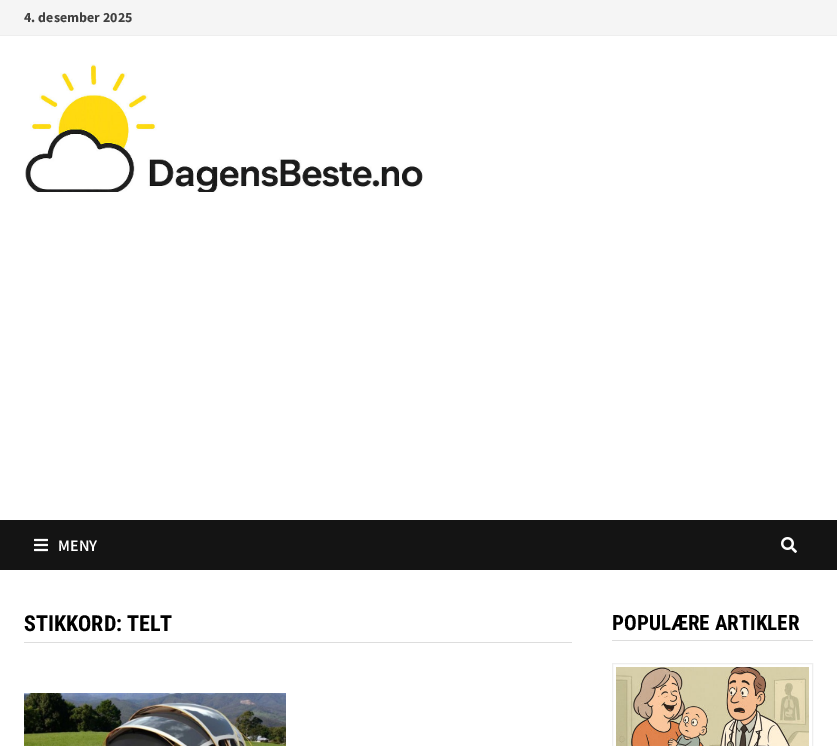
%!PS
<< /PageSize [837 746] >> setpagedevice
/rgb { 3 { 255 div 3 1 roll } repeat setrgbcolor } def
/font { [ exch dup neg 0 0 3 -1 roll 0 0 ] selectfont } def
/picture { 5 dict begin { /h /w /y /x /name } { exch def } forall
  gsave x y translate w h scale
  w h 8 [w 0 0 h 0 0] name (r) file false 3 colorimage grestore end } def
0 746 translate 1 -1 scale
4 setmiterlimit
255 255 255 rgb
0 0 837 746 rectfill
245 245 245 rgb
0 0 837 35 rectfill
238 238 238 rgb
0 35 837 1 rectfill
(img/1.rgb) 25 64 398 128 picture
20 20 20 rgb
0 520 837 50 rectfill
(img/2.rgb) 34 538 14 14 picture
(img/3.rgb) 781 537 16 16 picture
221 221 221 rgb
24 642 548 1 rectfill
(img/4.rgb) 24 693 262 53 picture
612 640 201 1 rectfill
238 238 238 rgb
612.5 663.5 200 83 rectstroke
(img/5.rgb) 616 667 193 79 picture
/SourceSansPro-Bold 14 font
64 64 64 rgb
24 22 moveto (4. desember 2025) show
/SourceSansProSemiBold-SemiBold 16 font
255 255 255 rgb
58 551 moveto (MENY) show
/RobotoCondensed-Bold 22 font
0 0 0 rgb
24 631 moveto (STIKKORD: TELT) show
/RobotoCondensed-Bold 21 font
612 630 moveto (POPULÆRE ARTIKLER) show
showpage
